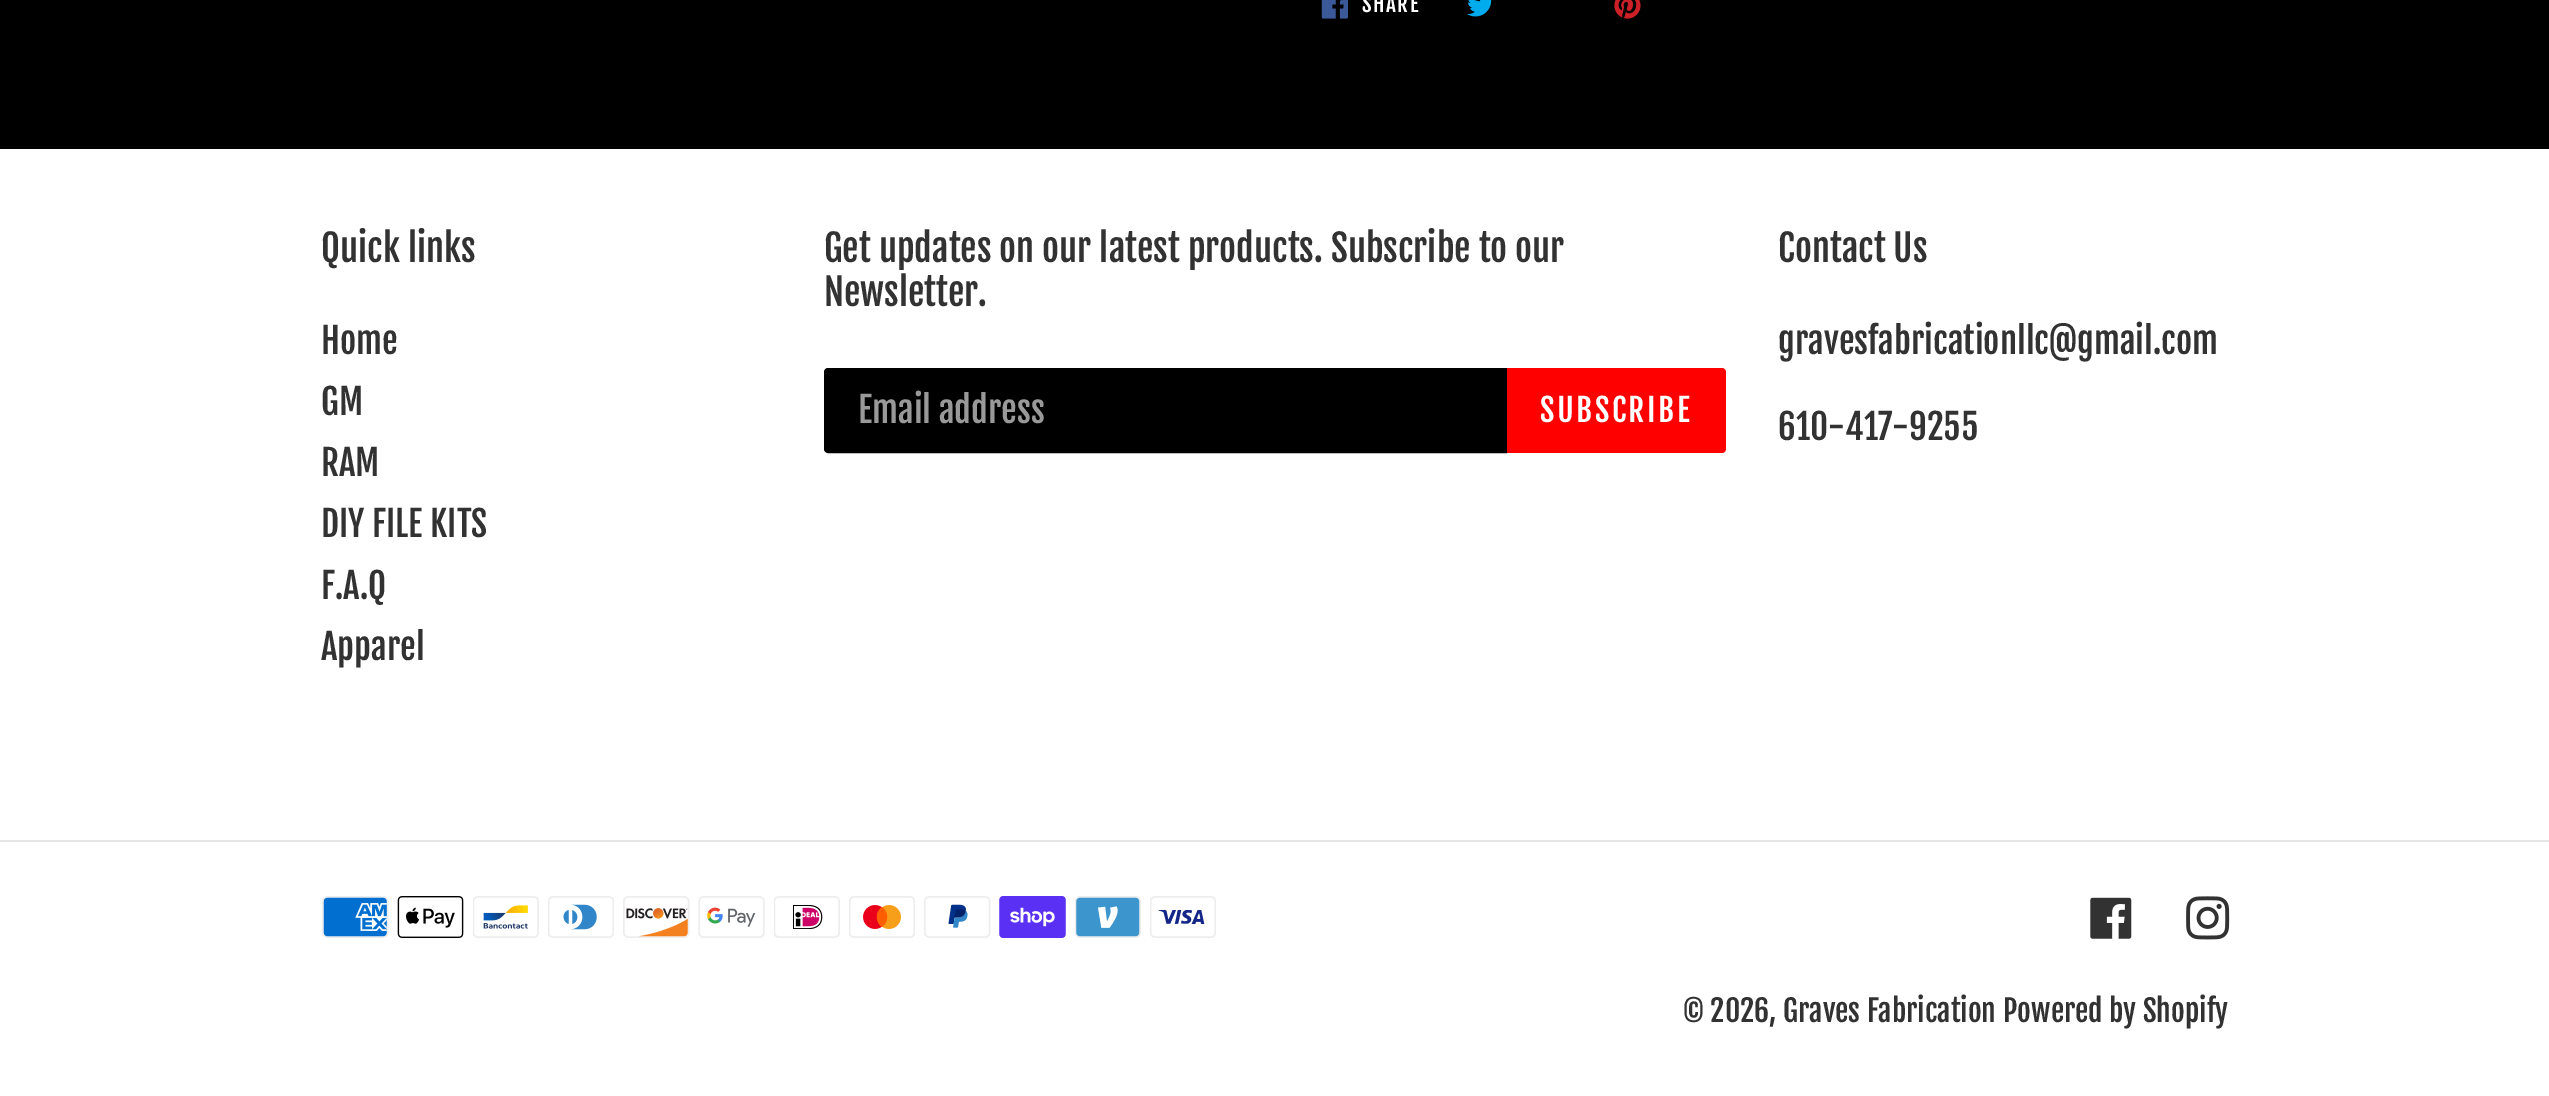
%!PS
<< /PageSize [2549 1096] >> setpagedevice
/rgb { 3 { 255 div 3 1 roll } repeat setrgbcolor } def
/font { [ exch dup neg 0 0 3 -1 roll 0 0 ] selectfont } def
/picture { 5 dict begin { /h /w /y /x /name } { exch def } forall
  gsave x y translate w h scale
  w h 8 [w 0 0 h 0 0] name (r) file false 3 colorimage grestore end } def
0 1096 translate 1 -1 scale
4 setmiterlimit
0 0 0 rgb
0 0 2549 1096 rectfill
(img/1.rgb) 1321 0 27 19 picture
(img/2.rgb) 1467 0 25 17 picture
(img/3.rgb) 1614 0 27 19 picture
255 255 255 rgb
0 149 2549 947 rectfill
0 0 0 rgb
828 369 moveto 1506 369 lineto 1506 452 lineto 828 452 lineto 826.5 452 825 450.5 825 449 curveto 825 372 lineto 825 370.5 826.5 369 828 369 curveto closepath gsave fill grestore
2 setlinewidth
stroke
255 0 0 rgb
1507 368 moveto 1722 368 lineto 1724 368 1726 370 1726 372 curveto 1726 449 lineto 1726 451 1724 453 1722 453 curveto 1507 453 lineto closepath fill
230 230 230 rgb
0 840 2549 2 rectfill
(img/4.rgb) 322 896 67 42 picture
(img/5.rgb) 397 896 67 42 picture
(img/6.rgb) 473 896 66 42 picture
(img/7.rgb) 548 896 66 42 picture
(img/8.rgb) 623 896 67 42 picture
(img/9.rgb) 698 896 67 42 picture
(img/10.rgb) 774 896 66 42 picture
(img/11.rgb) 849 896 66 42 picture
(img/12.rgb) 924 896 67 42 picture
(img/13.rgb) 999 896 67 42 picture
(img/14.rgb) 1075 896 66 42 picture
(img/15.rgb) 1150 896 66 42 picture
(img/16.rgb) 2090 897 42 42 picture
(img/17.rgb) 2186 896 44 44 picture
/FjallaOne-Regular 21 font
255 255 255 rgb
1362 12 moveto 1.5 0 (SHARE) ashow
/FjallaOne-Regular 36.75 font
51 50 50 rgb
321 262 moveto (Quick links) show
/FjallaOne-Regular 35 font
[
  [(Home) 321 354]
  [(GM) 321 415]
  [(RAM) 321 476]
  [(DIY FILE KITS) 321 537]
  [(F.A.Q) 321 599]
  [(Apparel) 321 660]
] { aload pop moveto show } forall
/FjallaOne-Regular 36.75 font
824 262 moveto (Get updates on our latest products. Subscribe to our) show
824 306 moveto (Newsletter.) show
/FjallaOne-Regular 35 font
153 153 153 rgb
858 423 moveto (Email address) show
/FjallaOne-Regular 31.5 font
255 255 255 rgb
1540 422 moveto 2.5 0 (SUBSCRIBE) ashow
/FjallaOne-Regular 36.75 font
51 50 50 rgb
1778 262 moveto (Contact Us) show
/FjallaOne-Regular 35 font
1778 354 moveto (gravesfabricationllc@gmail.com) show
1778 440 moveto (610-417-9255) show
/FjallaOne-Regular 29.75 font
1683 1022 moveto (© 2026, Graves Fabrication) show
2003 1022 moveto (Powered by Shopify) show
showpage
